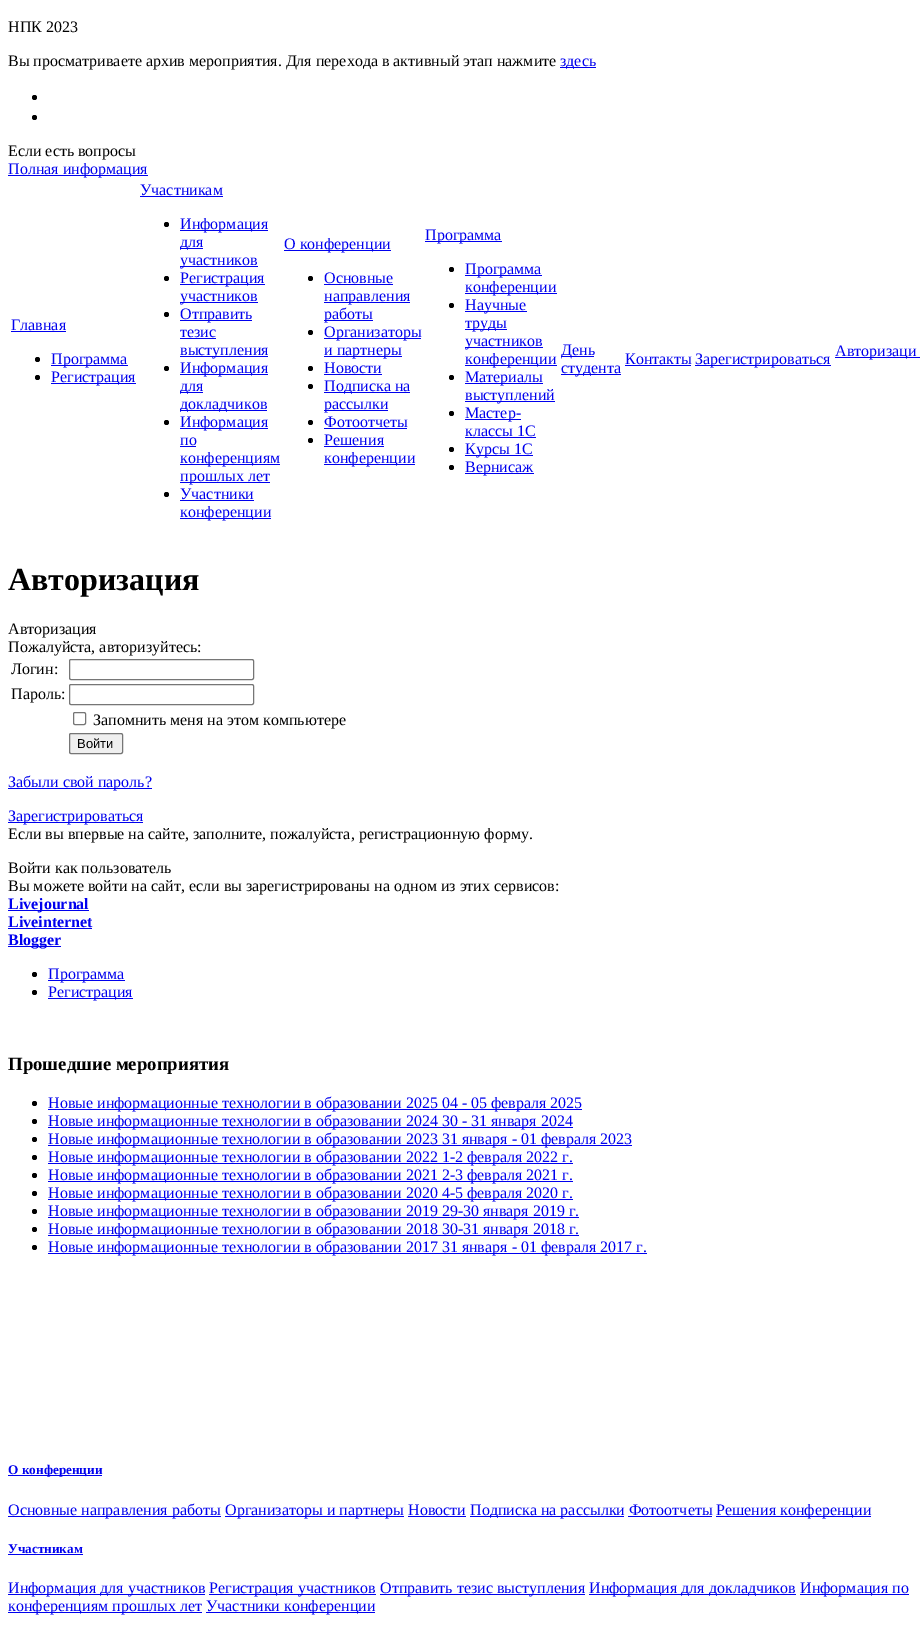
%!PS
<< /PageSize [920 1643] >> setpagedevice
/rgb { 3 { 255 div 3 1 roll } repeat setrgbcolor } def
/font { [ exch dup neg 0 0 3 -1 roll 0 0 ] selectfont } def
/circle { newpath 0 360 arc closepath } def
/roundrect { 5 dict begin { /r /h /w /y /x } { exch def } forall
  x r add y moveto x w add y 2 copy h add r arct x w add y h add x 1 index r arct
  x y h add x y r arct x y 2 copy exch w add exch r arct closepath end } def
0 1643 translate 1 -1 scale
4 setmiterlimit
255 255 255 rgb
0 0 920 1643 rectfill
0 0 238 rgb
560 67 36 1 rectfill
0 0 0 rgb
34.5 97.5 2.5 circle fill
34.5 117.5 2.5 circle fill
0 0 238 rgb
8 175 140 1 rectfill
11 331 55 1 rectfill
0 0 0 rgb
37.5 359.5 2.5 circle fill
0 0 238 rgb
51 365 77 1 rectfill
0 0 0 rgb
37.5 377.5 2.5 circle fill
0 0 238 rgb
51 383 85 1 rectfill
140 196 83 1 rectfill
0 0 0 rgb
166.5 224.5 2.5 circle fill
[
  [180 230 88 1 0 0 238]
  [180 248 23 1 0 0 238]
  [180 266 78 1 0 0 238]
] { aload pop rgb rectfill } forall
0 0 0 rgb
166.5 278.5 2.5 circle fill
0 0 238 rgb
180 284 85 1 rectfill
180 302 78 1 rectfill
0 0 0 rgb
166.5 314.5 2.5 circle fill
[
  [180 320 72 1 0 0 238]
  [180 338 36 1 0 0 238]
  [180 356 88 1 0 0 238]
] { aload pop rgb rectfill } forall
0 0 0 rgb
166.5 368.5 2.5 circle fill
[
  [180 374 88 1 0 0 238]
  [180 392 23 1 0 0 238]
  [180 410 87 1 0 0 238]
] { aload pop rgb rectfill } forall
0 0 0 rgb
166.5 422.5 2.5 circle fill
[
  [180 428 88 1 0 0 238]
  [180 446 16 1 0 0 238]
  [180 464 100 1 0 0 238]
  [180 482 90 1 0 0 238]
] { aload pop rgb rectfill } forall
0 0 0 rgb
166.5 494.5 2.5 circle fill
[
  [180 500 74 1 0 0 238]
  [180 518 91 1 0 0 238]
  [284 250 107 1 0 0 238]
] { aload pop rgb rectfill } forall
0 0 0 rgb
310.5 278.5 2.5 circle fill
[
  [324 284 69 1 0 0 238]
  [324 302 86 1 0 0 238]
  [324 320 49 1 0 0 238]
] { aload pop rgb rectfill } forall
0 0 0 rgb
310.5 332.5 2.5 circle fill
0 0 238 rgb
324 338 97 1 rectfill
324 356 78 1 rectfill
0 0 0 rgb
310.5 368.5 2.5 circle fill
0 0 238 rgb
324 374 58 1 rectfill
0 0 0 rgb
310.5 386.5 2.5 circle fill
0 0 238 rgb
324 392 86 1 rectfill
324 410 64 1 rectfill
0 0 0 rgb
310.5 422.5 2.5 circle fill
0 0 238 rgb
324 428 83 1 rectfill
0 0 0 rgb
310.5 440.5 2.5 circle fill
[
  [324 446 60 1 0 0 238]
  [324 464 91 1 0 0 238]
  [425 241 77 1 0 0 238]
] { aload pop rgb rectfill } forall
0 0 0 rgb
451.5 269.5 2.5 circle fill
0 0 238 rgb
465 275 77 1 rectfill
465 293 92 1 rectfill
0 0 0 rgb
451.5 305.5 2.5 circle fill
[
  [465 311 62 1 0 0 238]
  [465 329 42 1 0 0 238]
  [465 347 78 1 0 0 238]
  [465 365 92 1 0 0 238]
] { aload pop rgb rectfill } forall
0 0 0 rgb
451.5 377.5 2.5 circle fill
0 0 238 rgb
465 383 78 1 rectfill
465 401 90 1 rectfill
0 0 0 rgb
451.5 413.5 2.5 circle fill
0 0 238 rgb
465 419 56 1 rectfill
465 437 71 1 rectfill
0 0 0 rgb
451.5 449.5 2.5 circle fill
0 0 238 rgb
465 455 68 1 rectfill
0 0 0 rgb
451.5 467.5 2.5 circle fill
[
  [465 473 69 1 0 0 238]
  [561 356 33 1 0 0 238]
  [561 374 60 1 0 0 238]
  [625 365 66 1 0 0 238]
  [695 365 136 1 0 0 238]
  [835 357 85 1 0 0 238]
] { aload pop rgb rectfill } forall
118 118 118 rgb
69.5 659.5 184 20 1.5 roundrect stroke
69.5 684.5 184 20 1.5 roundrect stroke
73.5 712.5 12 12 1.5 roundrect stroke
239 239 239 rgb
69.5 733.5 53 20 1.5 roundrect gsave fill grestore
118 118 118 rgb
stroke
[
  [8 788 144 1 0 0 238]
  [8 822 135 1 0 0 238]
  [8 910 81 1 0 0 238]
  [8 928 84 1 0 0 238]
  [8 946 53 1 0 0 238]
] { aload pop rgb rectfill } forall
0 0 0 rgb
34.5 974.5 2.5 circle fill
0 0 238 rgb
48 980 77 1 rectfill
0 0 0 rgb
34.5 992.5 2.5 circle fill
0 0 238 rgb
48 998 85 1 rectfill
0 0 0 rgb
34.5 1103.5 2.5 circle fill
0 0 238 rgb
48 1109 534 1 rectfill
0 0 0 rgb
34.5 1121.5 2.5 circle fill
0 0 238 rgb
48 1127 525 1 rectfill
0 0 0 rgb
34.5 1139.5 2.5 circle fill
0 0 238 rgb
48 1145 584 1 rectfill
0 0 0 rgb
34.5 1157.5 2.5 circle fill
0 0 238 rgb
48 1163 525 1 rectfill
0 0 0 rgb
34.5 1175.5 2.5 circle fill
0 0 238 rgb
48 1181 525 1 rectfill
0 0 0 rgb
34.5 1193.5 2.5 circle fill
0 0 238 rgb
48 1199 525 1 rectfill
0 0 0 rgb
34.5 1211.5 2.5 circle fill
0 0 238 rgb
48 1217 531 1 rectfill
0 0 0 rgb
34.5 1229.5 2.5 circle fill
0 0 238 rgb
48 1235 531 1 rectfill
0 0 0 rgb
34.5 1247.5 2.5 circle fill
[
  [48 1253 599 1 0 0 238]
  [8 1475 94 1 0 0 238]
  [8 1516 213 1 0 0 238]
  [225 1516 179 1 0 0 238]
  [470 1516 154 1 0 0 238]
  [716 1516 155 1 0 0 238]
  [408 1516 58 1 0 0 238]
  [628 1516 84 1 0 0 238]
  [8 1554 75 1 0 0 238]
  [8 1594 197 1 0 0 238]
  [209 1594 167 1 0 0 238]
  [380 1594 205 1 0 0 238]
  [589 1594 207 1 0 0 238]
  [800 1594 109 1 0 0 238]
  [8 1612 194 1 0 0 238]
  [206 1612 169 1 0 0 238]
] { aload pop rgb rectfill } forall
/LiberationSerif-Regular 16 font
0 0 0 rgb
8 32 moveto (НПК 2023) show
8 66 moveto (Вы просматриваете архив мероприятия. Для перехода в активный этап нажмите) show
0 0 238 rgb
560 66 moveto (здесь) show
0 0 0 rgb
8 156 moveto (Если есть вопросы) show
0 0 238 rgb
[
  [(Полная информация) 8 174]
  [(Главная) 11 330]
  [(Программа) 51 364]
  [(Регистрация) 51 382]
  [(Участникам) 140 195]
  [(Информация) 180 229]
  [(для) 180 247]
  [(участников) 180 265]
  [(Регистрация) 180 283]
  [(участников) 180 301]
  [(Отправить) 180 319]
  [(тезис) 180 337]
  [(выступления) 180 355]
  [(Информация) 180 373]
  [(для) 180 391]
  [(докладчиков) 180 409]
  [(Информация) 180 427]
  [(по) 180 445]
  [(конференциям) 180 463]
  [(прошлых лет) 180 481]
  [(Участники) 180 499]
  [(конференции) 180 517]
  [(О конференции) 284 249]
  [(Основные) 324 283]
  [(направления) 324 301]
  [(работы) 324 319]
  [(Организаторы) 324 337]
  [(и партнеры) 324 355]
  [(Новости) 324 373]
  [(Подписка на) 324 391]
  [(рассылки) 324 409]
  [(Фотоотчеты) 324 427]
  [(Решения) 324 445]
  [(конференции) 324 463]
  [(Программа) 425 240]
  [(Программа) 465 274]
  [(конференции) 465 292]
  [(Научные) 465 310]
  [(труды) 465 328]
  [(участников) 465 346]
  [(конференции) 465 364]
  [(Материалы) 465 382]
  [(выступлений) 465 400]
  [(Мастер-) 465 418]
  [(классы 1С) 465 436]
  [(Курсы 1С) 465 454]
  [(Вернисаж) 465 472]
  [(День) 561 355]
  [(студента) 561 373]
  [(Контакты) 625 364]
  [(Зарегистрироваться) 695 364]
  [(Авторизаци) 835 356]
] { aload pop moveto show } forall
/LiberationSerif-Bold 32 font
0 0 0 rgb
8 590 moveto (Авторизация) show
/LiberationSerif-Regular 16 font
[
  [(Авторизация) 8 634]
  [(Пожалуйста, авторизуйтесь:) 8 652]
  [(Логин:) 11 674]
  [(Пароль:) 11 699]
  [(Запомнить меня на этом компьютере) 93 725]
] { aload pop moveto show } forall
/LiberationSans-Regular 13 font
77 748 moveto (Войти) show
/LiberationSerif-Regular 16 font
0 0 238 rgb
8 787 moveto (Забыли свой пароль?) show
8 821 moveto (Зарегистрироваться) show
0 0 0 rgb
[
  [(Если вы впервые на сайте, заполните, пожалуйста, регистрационную форму.) 8 839]
  [(Войти как пользователь) 8 873]
  [(Вы можете войти на сайт, если вы зарегистрированы на одном из этих сервисов:) 8 891]
] { aload pop moveto show } forall
/LiberationSerif-Bold 16 font
0 0 238 rgb
[
  [(Livejournal) 8 909]
  [(Liveinternet) 8 927]
  [(Blogger) 8 945]
] { aload pop moveto show } forall
/LiberationSerif-Regular 16 font
48 979 moveto (Программа) show
48 997 moveto (Регистрация) show
/LiberationSerif-Bold 18.75 font
0 0 0 rgb
8 1070 moveto (Прошедшие мероприятия) show
/LiberationSerif-Regular 16 font
0 0 238 rgb
[
  [(Новые информационные технологии в образовании 2025 04 - 05 февраля 2025) 48 1108]
  [(Новые информационные технологии в образовании 2024 30 - 31 января 2024) 48 1126]
  [(Новые информационные технологии в образовании 2023 31 января - 01 февраля 2023) 48 1144]
  [(Новые информационные технологии в образовании 2022 1-2 февраля 2022 г.) 48 1162]
  [(Новые информационные технологии в образовании 2021 2-3 февраля 2021 г.) 48 1180]
  [(Новые информационные технологии в образовании 2020 4-5 февраля 2020 г.) 48 1198]
  [(Новые информационные технологии в образовании 2019 29-30 января 2019 г.) 48 1216]
  [(Новые информационные технологии в образовании 2018 30-31 января 2018 г.) 48 1234]
  [(Новые информационные технологии в образовании 2017 31 января - 01 февраля 2017 г.) 48 1252]
] { aload pop moveto show } forall
/LiberationSerif-Bold 13.25 font
8 1474 moveto (О конференции) show
/LiberationSerif-Regular 16 font
[
  [(Основные направления работы) 8 1515]
  [(Организаторы и партнеры Новости) 225 1515]
  [(Подписка на рассылки Фотоотчеты) 470 1515]
  [(Решения конференции) 716 1515]
] { aload pop moveto show } forall
/LiberationSerif-Bold 13.25 font
8 1553 moveto (Участникам) show
/LiberationSerif-Regular 16 font
[
  [(Информация для участников) 8 1593]
  [(Регистрация участников) 209 1593]
  [(Отправить тезис выступления) 380 1593]
  [(Информация для докладчиков) 589 1593]
  [(Информация по) 800 1593]
  [(конференциям прошлых лет) 8 1611]
  [(Участники конференции) 206 1611]
] { aload pop moveto show } forall
showpage
